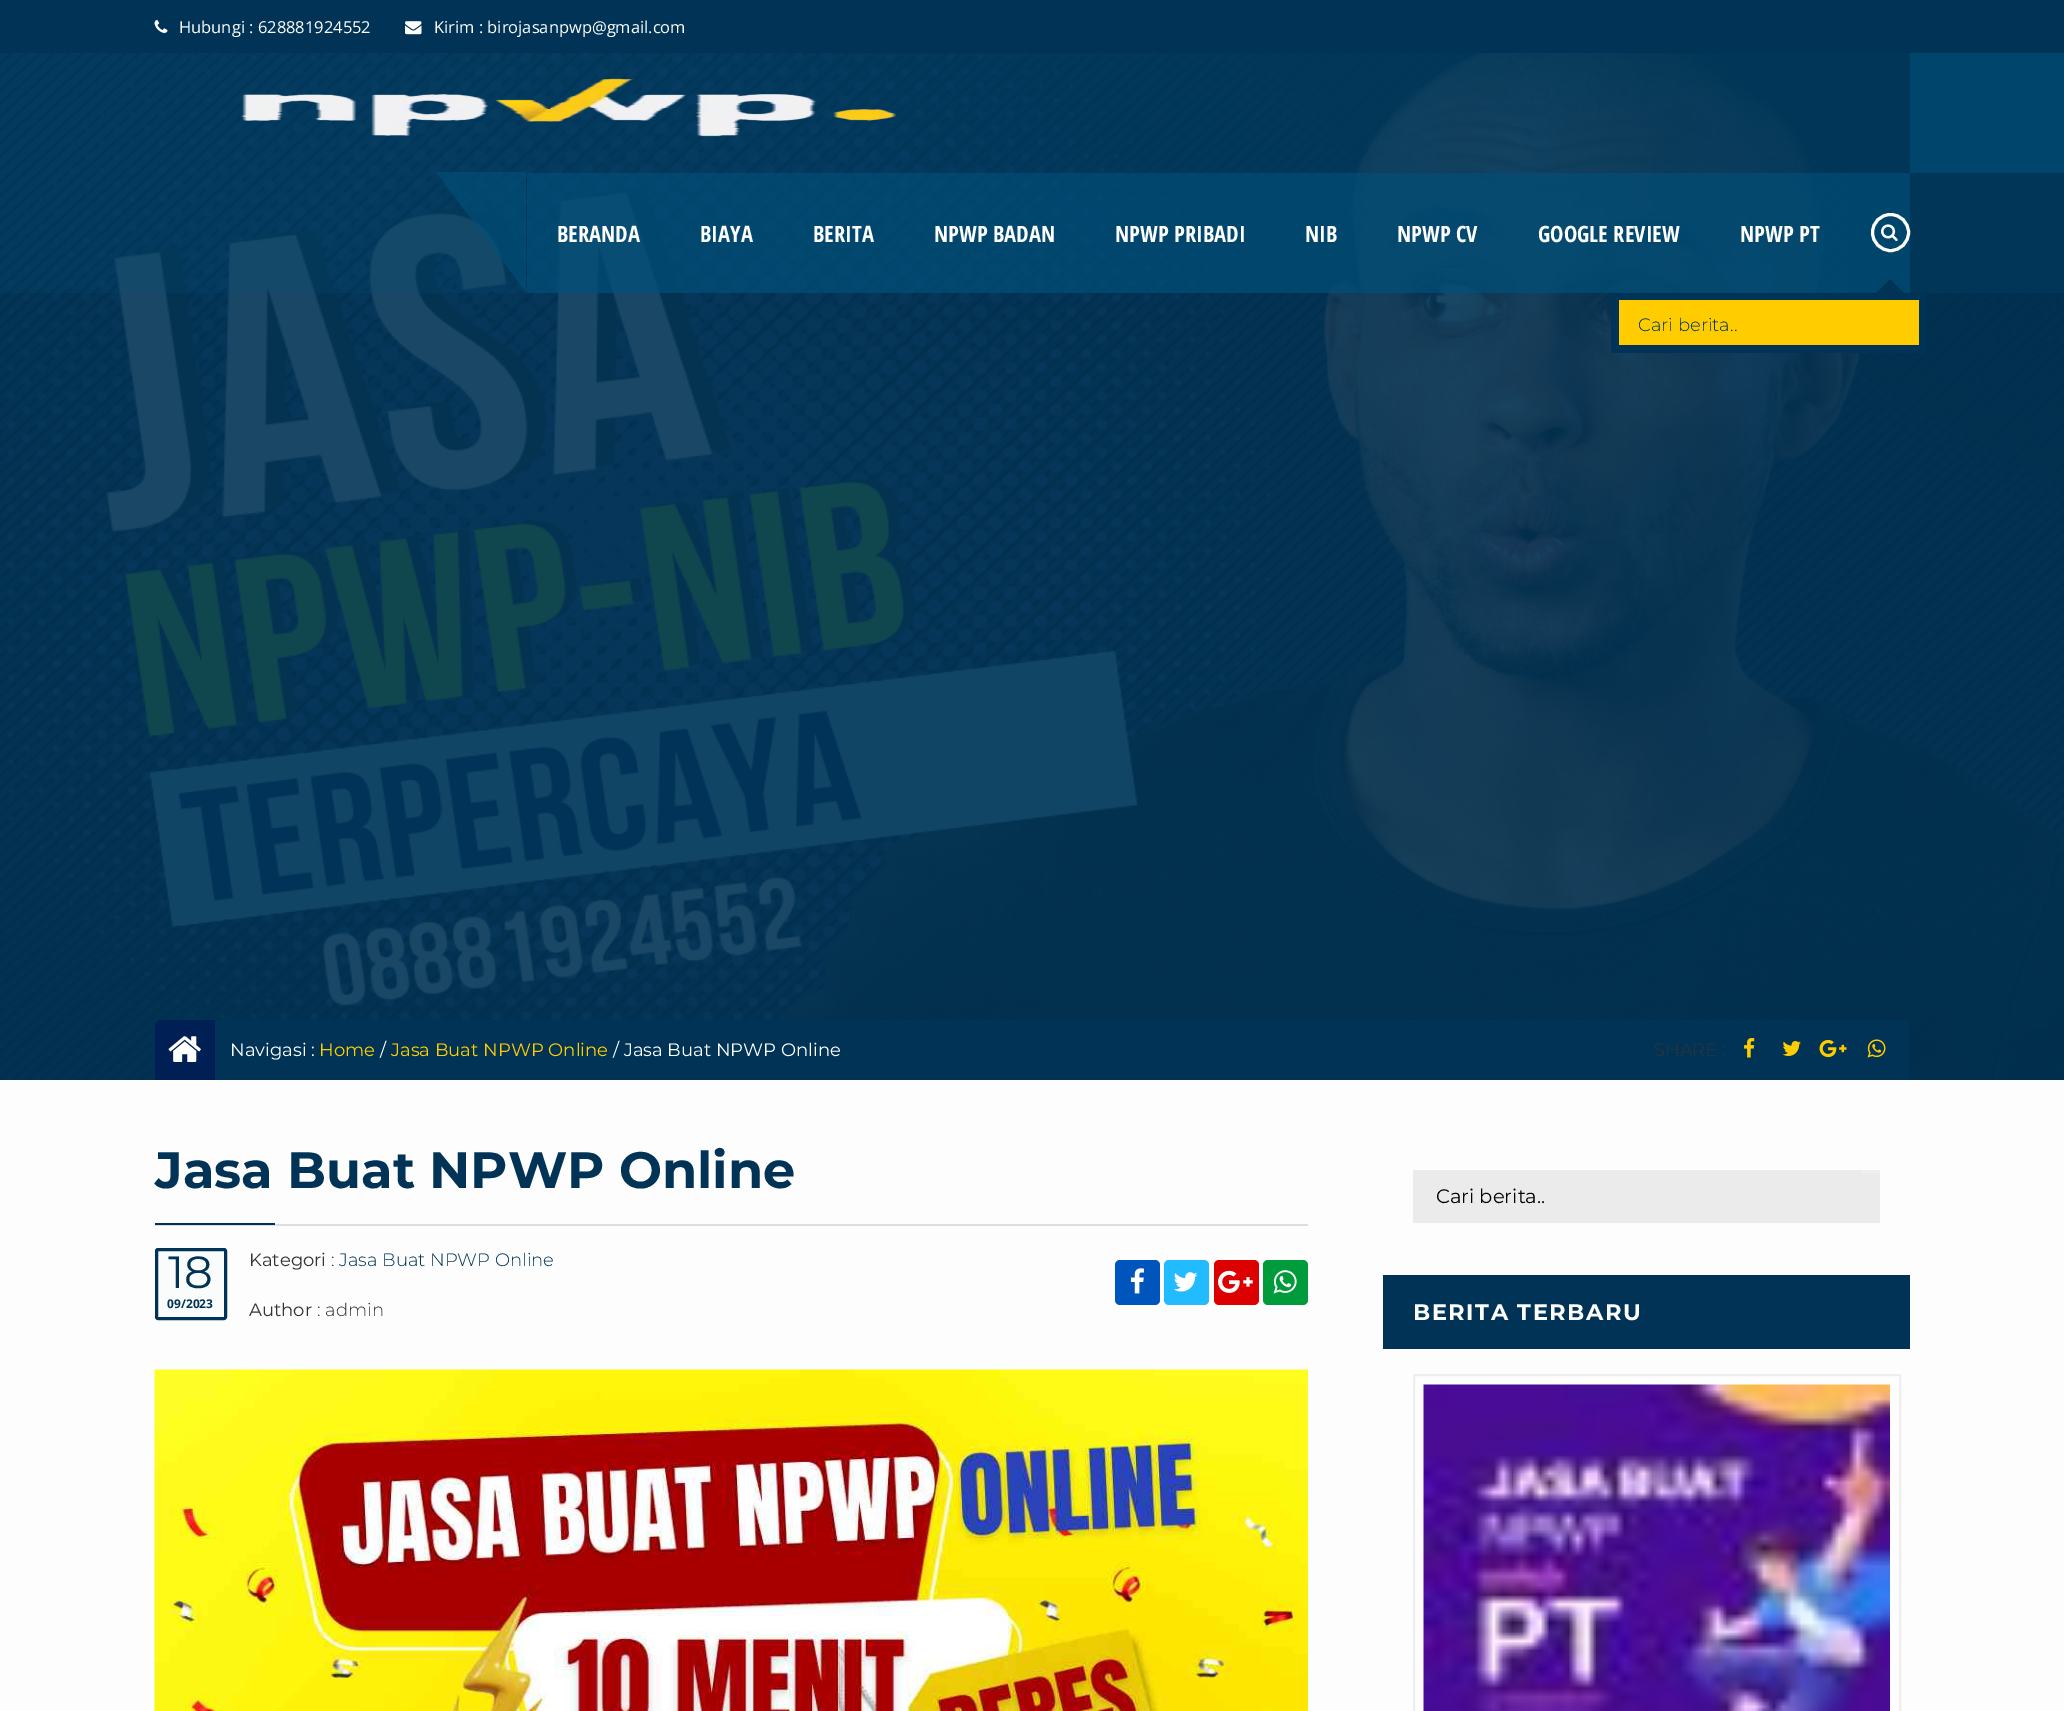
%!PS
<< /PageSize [2064 1711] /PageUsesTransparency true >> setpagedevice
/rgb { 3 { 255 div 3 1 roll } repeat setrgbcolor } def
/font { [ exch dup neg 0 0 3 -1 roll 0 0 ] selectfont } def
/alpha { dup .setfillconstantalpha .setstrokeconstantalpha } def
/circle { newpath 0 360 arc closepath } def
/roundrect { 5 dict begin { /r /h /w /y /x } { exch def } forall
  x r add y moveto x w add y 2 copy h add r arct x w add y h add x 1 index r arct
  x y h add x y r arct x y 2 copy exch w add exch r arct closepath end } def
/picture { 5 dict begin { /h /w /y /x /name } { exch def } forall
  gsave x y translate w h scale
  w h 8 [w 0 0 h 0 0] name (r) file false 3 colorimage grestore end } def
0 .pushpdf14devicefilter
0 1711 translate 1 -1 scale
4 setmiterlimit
253 253 253 rgb
0 0 2064 1711 rectfill
(img/5.rgb) 0 53 2064 1027 picture
0.2 alpha
0 80 122 rgb
0 53 2064 240 rectfill
1 alpha
0 51 85 rgb
0 0 2064 53 rectfill
(img/1.rgb) 154 20 14 13 picture
(img/2.rgb) 405 21 17 14 picture
(img/3.rgb) 241 78 655 59 picture
0 70 108 rgb
1910 53 154 120 rectfill
0.6 alpha
0 80 122 rgb
527 173 1323 120 rectfill
436 172 moveto 526 172 lineto 526 292 lineto closepath fill
1 alpha
0 70 108 rgb
1850 173 60 120 rectfill
255 255 255 rgb
3 setlinewidth
1890.5 232.5 18 circle stroke
(img/4.rgb) 1881 224 17 18 picture
0 51 85 rgb
1611 293 315 60 rectfill
255 204 0 rgb
1619 300 300 45 rectfill
0 51 85 rgb
1905 294 moveto 1875 294 lineto 1890 279 lineto closepath fill
161 1020 moveto 1904 1020 lineto 1907.5 1020 1910 1022.5 1910 1026 curveto 1910 1080 lineto 155 1080 lineto 155 1026 lineto 155 1022.5 157.5 1020 161 1020 curveto closepath fill
0 31 85 rgb
161 1020 moveto 215 1020 lineto 215 1080 lineto 155 1080 lineto 155 1026 lineto 155 1022.5 157.5 1020 161 1020 curveto closepath fill
(img/6.rgb) 168 1036 33 26 picture
(img/7.rgb) 1744 1038 11 20 picture
(img/8.rgb) 1782 1041 19 15 picture
(img/9.rgb) 1819 1039 28 19 picture
(img/10.rgb) 1867 1039 19 19 picture
221 221 221 rgb
155 1224 1153 2 rectfill
0 51 85 rgb
155 1223 120 2 rectfill
250 251 251 rgb
156.5 1249.5 69 69 1.5 roundrect gsave fill grestore
0 51 85 rgb
stroke
0 85 189 rgb
1115 1260 45 45 5 roundrect fill
(img/11.rgb) 1130 1268 14 26 picture
34 187 255 rgb
1164 1260 45 45 5 roundrect fill
(img/12.rgb) 1173 1272 25 20 picture
221 0 0 rgb
1214 1260 45 45 5 roundrect fill
(img/13.rgb) 1218 1270 35 23 picture
0 156 59 rgb
1263 1260 45 45 5 roundrect fill
(img/14.rgb) 1273 1270 24 24 picture
(img/15.rgb) 154 1369 1154 342 picture
[
  [1413 1170 467 53 235 235 235]
  [1862 1170 18 3 239 239 239]
  [1383 1275 527 74 0 51 85]
] { aload pop rgb rectfill } forall
238 238 238 rgb
2 setlinewidth
1414 1375 486 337 rectstroke
(img/16.rgb) 1423 1384 467 327 picture
/OpenSans-Regular 16.5 font
255 255 255 rgb
179 33 moveto (Hubungi : 628881924552) show
434 33 moveto (Kirim : birojasanpwp@gmail.com) show
/OpenSansCondensed-Bold 22.5 font
[
  [(BERANDA) 557 242]
  [(BIAYA) 700 242]
  [(BERITA) 813 242]
  [(NPWP BADAN) 934 242]
  [(NPWP PRIBADI) 1115 242]
  [(NIB) 1305 242]
  [(NPWP CV) 1397 242]
  [(GOOGLE REVIEW) 1538 242]
  [(NPWP PT) 1740 242]
] { aload pop moveto show } forall
/Montserrat-Light 18 font
0 51 85 rgb
1638 331 moveto (Cari berita..) show
/Montserrat-Regular 18 font
255 255 255 rgb
230 1056 moveto (Navigasi :) show
255 204 0 rgb
319 1056 moveto (Home) show
255 255 255 rgb
380 1056 moveto (/) show
255 204 0 rgb
391 1056 moveto (Jasa Buat NPWP Online) show
255 255 255 rgb
613 1056 moveto (/ Jasa Buat NPWP Online) show
/Montserrat-Light 18 font
51 51 51 rgb
1654 1056 moveto (SHARE :) show
/Montserrat-Bold 51 font
0 51 85 rgb
155 1188 moveto (Jasa Buat NPWP Online) show
/Montserrat-Regular 45 font
168 1288 moveto (18) show
/OpenSans-Bold 12 font
167 1308 moveto (09/2023) show
/Montserrat-Regular 18 font
51 51 51 rgb
249 1266 moveto (Kategori) show
/Montserrat-Light 18 font
331 1266 moveto (:) show
0 51 85 rgb
339 1266 moveto (Jasa Buat NPWP Online) show
/Montserrat-Regular 18 font
51 51 51 rgb
249 1316 moveto (Author) show
/Montserrat-Light 18 font
317 1316 moveto (: admin) show
/Montserrat-Regular 19.5 font
0 0 0 rgb
1436 1203 moveto (Cari berita..) show
/Montserrat-Bold 22.5 font
255 255 255 rgb
1413 1320 moveto 1.5 0 (BERITA TERBARU) ashow
.poppdf14devicefilter showpage
